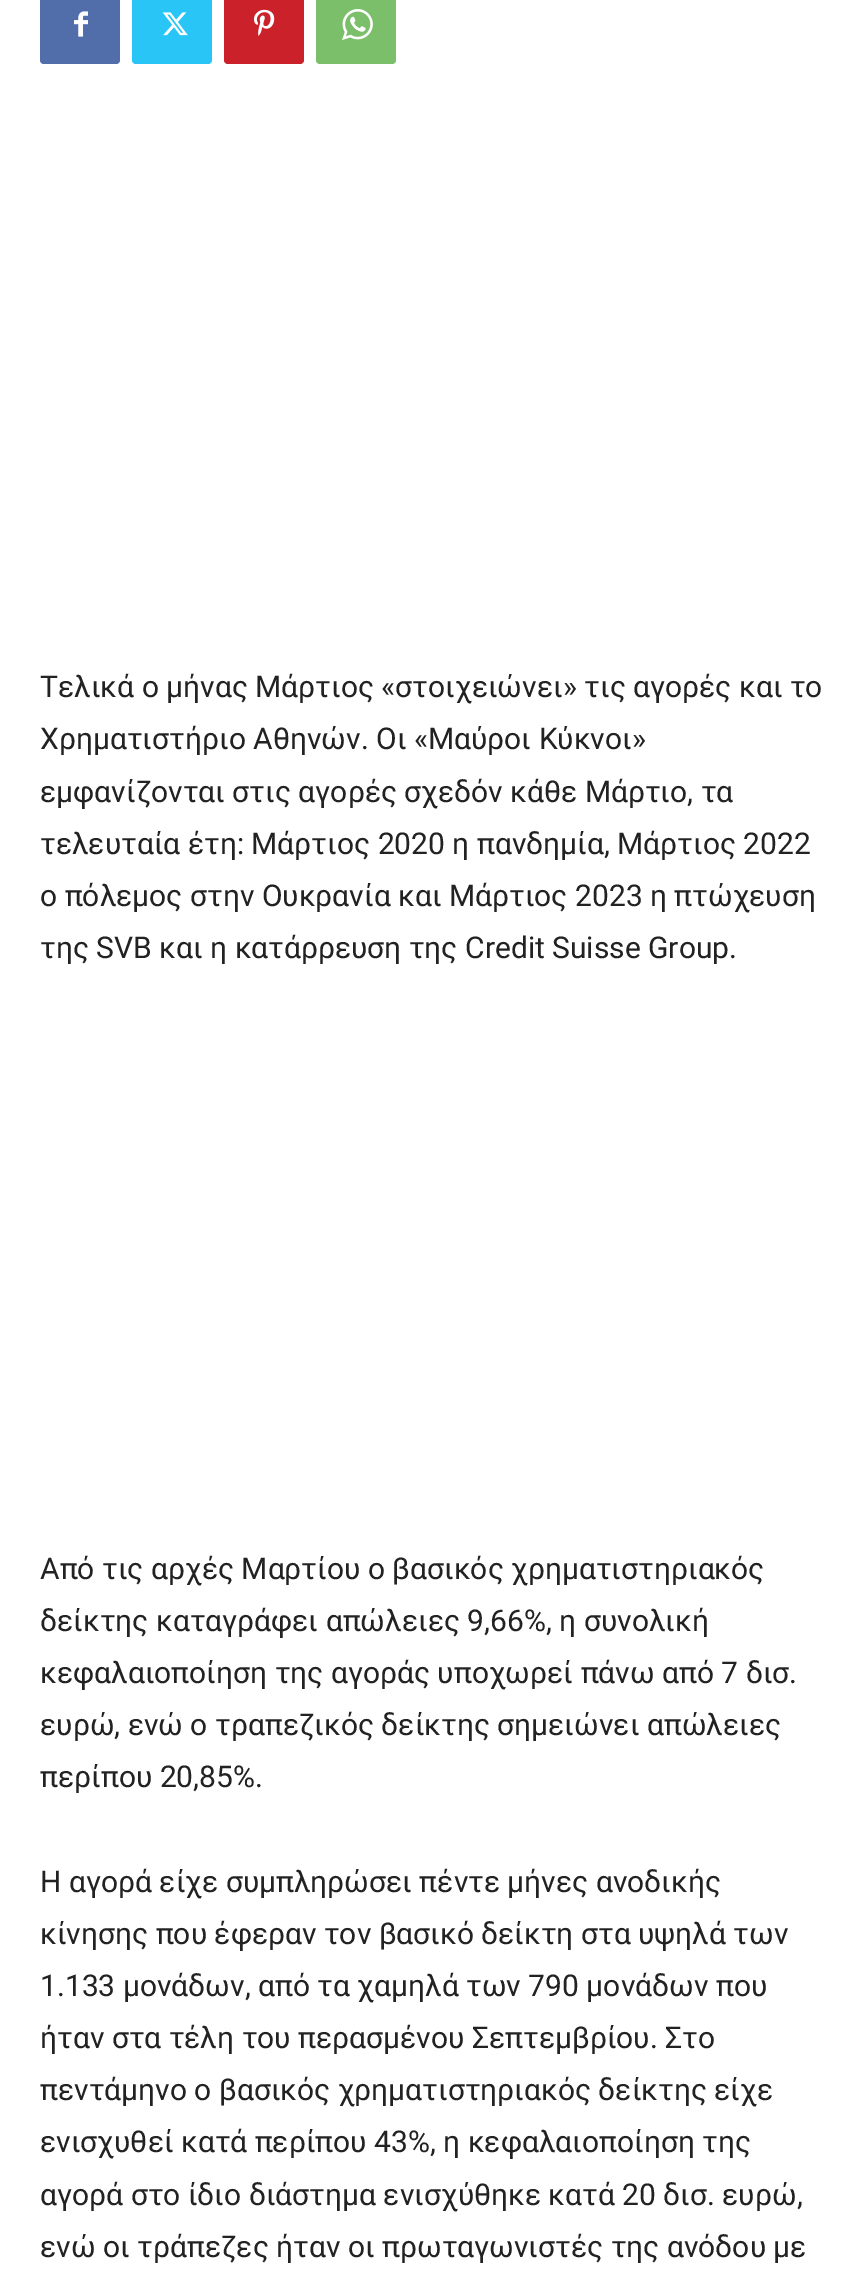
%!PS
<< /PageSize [866 2286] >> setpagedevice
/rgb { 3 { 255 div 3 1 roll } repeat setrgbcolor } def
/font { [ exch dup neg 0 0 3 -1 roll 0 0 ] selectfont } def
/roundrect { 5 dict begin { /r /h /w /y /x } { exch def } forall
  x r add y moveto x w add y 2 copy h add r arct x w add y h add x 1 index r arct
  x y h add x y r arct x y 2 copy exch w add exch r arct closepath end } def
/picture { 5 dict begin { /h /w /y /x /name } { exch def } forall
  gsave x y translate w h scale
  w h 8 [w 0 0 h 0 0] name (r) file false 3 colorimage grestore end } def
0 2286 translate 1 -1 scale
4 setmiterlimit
255 255 255 rgb
0 0 866 2286 rectfill
81 110 171 rgb
40 -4 80 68 4 roundrect fill
(img/1.rgb) 74 11 14 26 picture
41 197 246 rgb
132 -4 80 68 4 roundrect fill
(img/2.rgb) 162 12 26 24 picture
202 33 42 rgb
224 -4 80 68 4 roundrect fill
(img/3.rgb) 254 9 21 27 picture
123 191 106 rgb
316 -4 80 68 4 roundrect fill
(img/4.rgb) 342 9 31 31 picture
/Roboto-Regular 30 font
34 34 34 rgb
[
  [(Τελικά ο μήνας Μάρτιος «στοιχειώνει» τις αγορές και το) 40 697]
  [(Χρηματιστήριο Αθηνών. Οι «Μαύροι Κύκνοι») 40 749]
  [(εμφανίζονται στις αγορές σχεδόν κάθε Μάρτιο, τα) 40 802]
  [(τελευταία έτη: Μάρτιος 2020 η πανδημία, Μάρτιος 2022) 40 854]
  [(ο πόλεμος στην Ουκρανία και Μάρτιος 2023 η πτώχευση) 40 906]
  [(της SVB και η κατάρρευση της Credit Suisse Group.) 40 958]
  [(Από τις αρχές Μαρτίου ο βασικός χρηματιστηριακός) 40 1579]
  [(δείκτης καταγράφει απώλειες 9,66%, η συνολική) 40 1631]
  [(κεφαλαιοποίηση της αγοράς υποχωρεί πάνω από 7 δισ.) 40 1683]
  [(ευρώ, ενώ ο τραπεζικός δείκτης σημειώνει απώλειες) 40 1735]
  [(περίπου 20,85%.) 40 1787]
  [(Η αγορά είχε συμπληρώσει πέντε μήνες ανοδικής) 40 1892]
  [(κίνησης που έφεραν τον βασικό δείκτη στα υψηλά των) 40 1944]
  [(1.133 μονάδων, από τα χαμηλά των 790 μονάδων που) 40 1996]
  [(ήταν στα τέλη του περασμένου Σεπτεμβρίου. Στο) 40 2048]
  [(πεντάμηνο ο βασικός χρηματιστηριακός δείκτης είχε) 40 2100]
  [(ενισχυθεί κατά περίπου 43%, η κεφαλαιοποίηση της) 40 2152]
  [(αγορά στο ίδιο διάστημα ενισχύθηκε κατά 20 δισ. ευρώ,) 40 2205]
  [(ενώ οι τράπεζες ήταν οι πρωταγωνιστές της ανόδου με) 40 2257]
] { aload pop moveto show } forall
showpage
